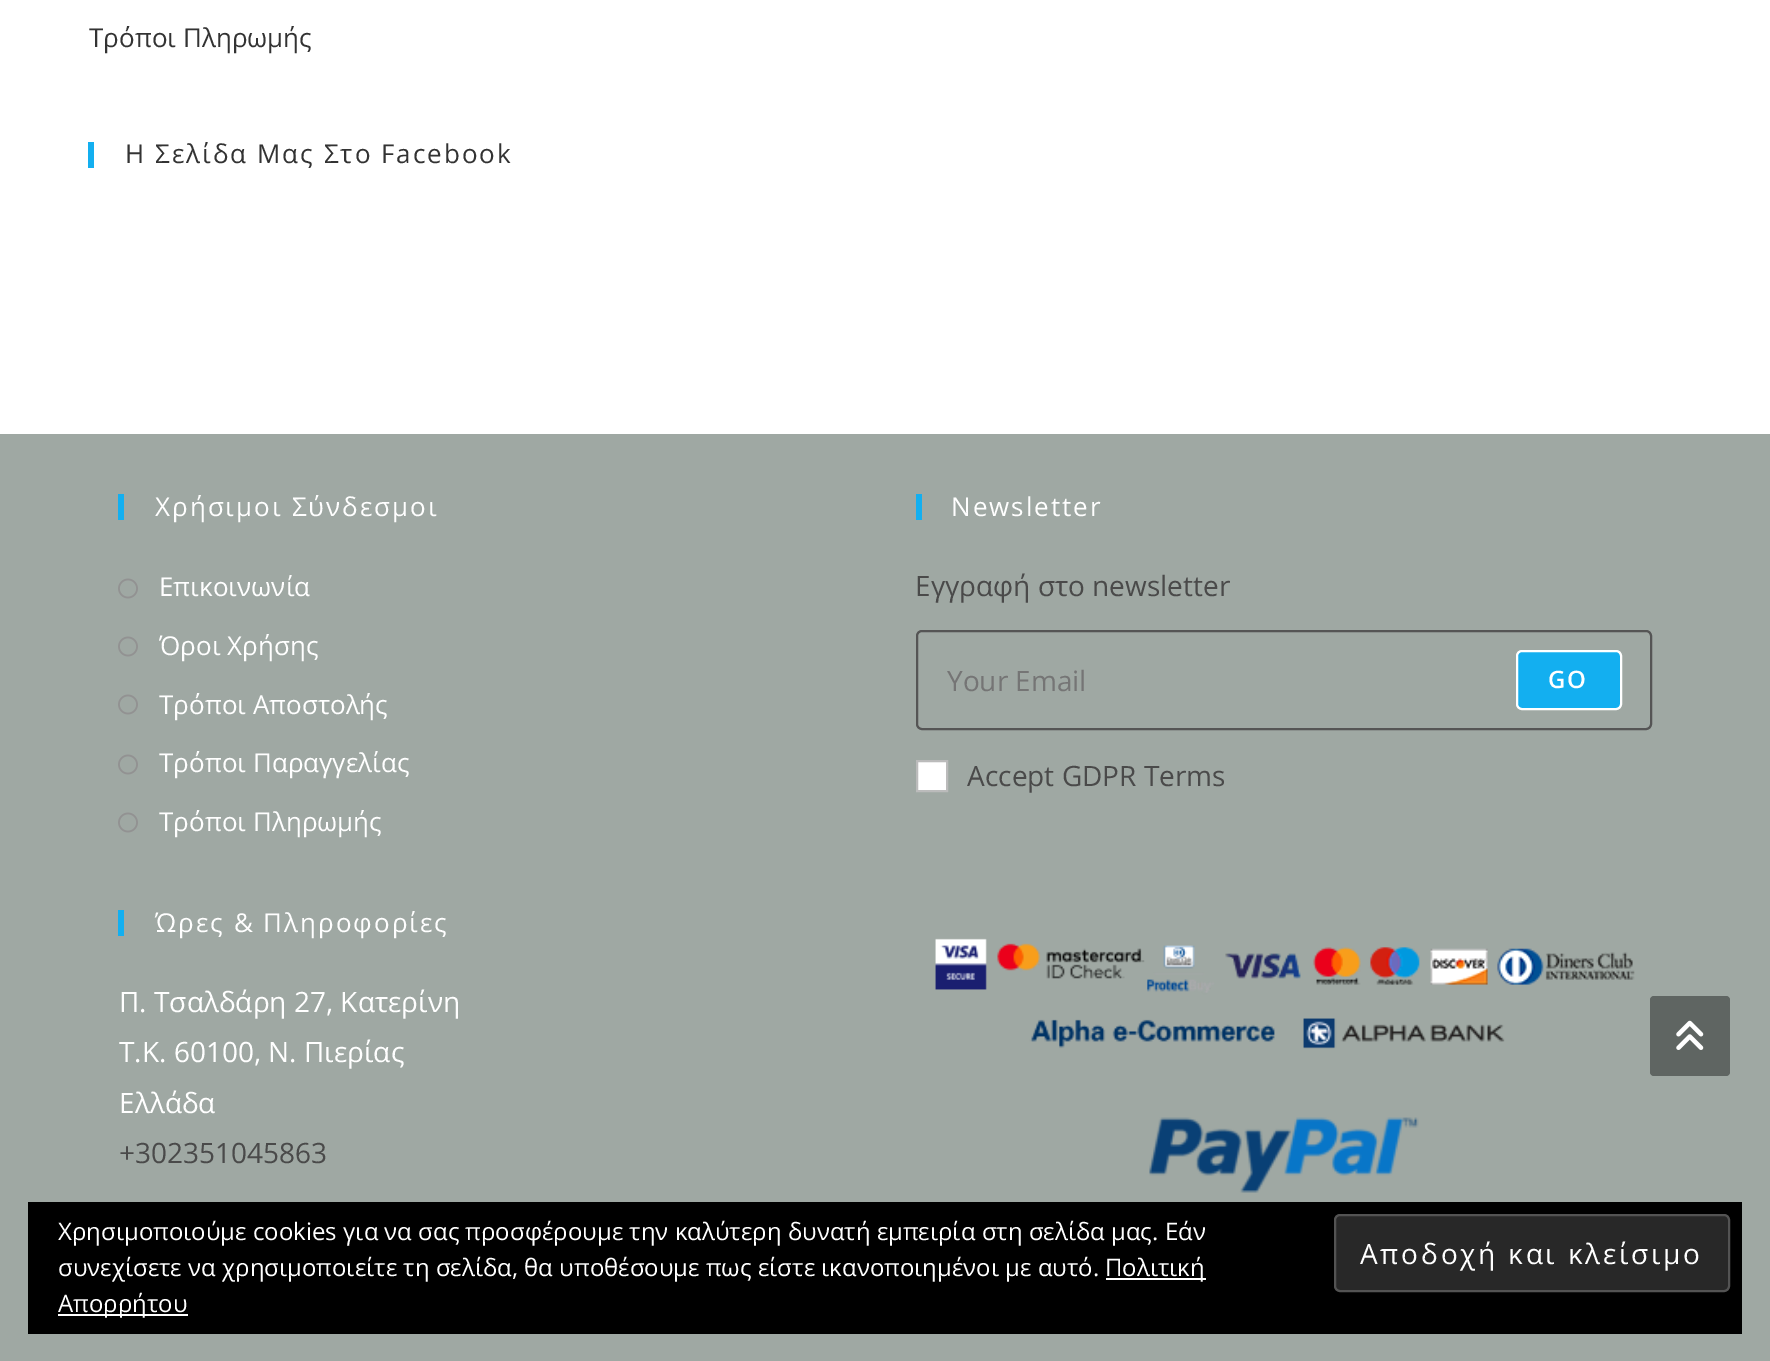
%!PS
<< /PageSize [1770 1361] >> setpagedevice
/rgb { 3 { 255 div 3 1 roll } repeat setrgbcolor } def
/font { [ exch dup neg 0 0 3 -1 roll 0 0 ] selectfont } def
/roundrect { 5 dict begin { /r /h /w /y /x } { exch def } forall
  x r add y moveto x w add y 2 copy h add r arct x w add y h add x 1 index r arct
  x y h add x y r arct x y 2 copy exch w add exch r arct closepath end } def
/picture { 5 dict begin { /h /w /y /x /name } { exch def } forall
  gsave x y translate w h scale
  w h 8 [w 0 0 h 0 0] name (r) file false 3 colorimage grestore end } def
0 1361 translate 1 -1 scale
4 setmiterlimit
255 255 255 rgb
0 0 1770 1361 rectfill
[
  [88 142 6 26 19 175 240]
  [0 434 1770 927 159 168 163]
  [118 494 6 26 19 175 240]
] { aload pop rgb rectfill } forall
(img/1.rgb) 118 578 20 21 picture
(img/1.rgb) 118 636 20 21 picture
(img/1.rgb) 118 694 20 21 picture
(img/1.rgb) 118 754 20 21 picture
(img/1.rgb) 118 812 20 21 picture
916 494 6 26 rectfill
85 85 85 rgb
2 setlinewidth
917 631 734 98 5 roundrect stroke
19 175 240 rgb
1517 651 104 58 5 roundrect gsave fill grestore
255 255 255 rgb
stroke
917 761 moveto 947 761 lineto 947 791 lineto 917 791 lineto closepath gsave fill grestore
187 187 187 rgb
stroke
19 175 240 rgb
118 910 6 26 rectfill
(img/2.rgb) 935 938 700 111 picture
(img/3.rgb) 1149 1117 270 76 picture
95 101 98 rgb
1650 996 80 80 4 roundrect fill
(img/4.rgb) 1676 1020 28 30 picture
0 0 0 rgb
28 1202 1714 132 rectfill
255 255 255 rgb
1106 1278 100 2 rectfill
40 40 40 rgb
1335 1215 394 76 5 roundrect gsave fill grestore
83 83 83 rgb
stroke
255 255 255 rgb
58 1314 130 2 rectfill
/OpenSans-Regular 26 font
51 51 51 rgb
89 47 moveto (Τρόποι Πληρωμής) show
125 163 moveto 2 0 (Η Σελίδα Μας Στο Facebook) ashow
255 255 255 rgb
155 516 moveto 2 0 (Χρήσιμοι Σύνδεσμοι) ashow
[
  [(Επικοινωνία) 159 596]
  [(Όροι Χρήσης) 159 655]
  [(Τρόποι Αποστολής) 159 714]
  [(Τρόποι Παραγγελίας) 159 772]
  [(Τρόποι Πληρωμής) 159 831]
] { aload pop moveto show } forall
951 516 moveto 2 0 (Newsletter) ashow
/OpenSans-Regular 28 font
74 74 74 rgb
915 596 moveto (Εγγραφή στο newsletter) show
117 117 117 rgb
947 691 moveto (Your Email) show
/OpenSans-SemiBold 24 font
255 255 255 rgb
1548 688 moveto 2 0 (GO) ashow
/OpenSans-Regular 28 font
74 74 74 rgb
967 786 moveto (Accept GDPR Terms) show
/OpenSans-Regular 26 font
255 255 255 rgb
155 932 moveto 2 0 (Ώρες & Πληροφορίες) ashow
/OpenSans-Regular 28 font
[
  [(Π. Τσαλδάρη 27, Κατερίνη) 119 1012]
  [(Τ.Κ. 60100, Ν. Πιερίας) 119 1062]
  [(Ελλάδα) 119 1113]
] { aload pop moveto show } forall
74 74 74 rgb
119 1163 moveto (+302351045863) show
/OpenSans-Regular 24 font
255 255 255 rgb
[
  [(Χρησιμοποιούμε cookies για να σας προσφέρουμε την καλύτερη δυνατή εμπειρία στη σελίδα μας. Εάν) 58 1240]
  [(συνεχίσετε να χρησιμοποιείτε τη σελίδα, θα υποθέσουμε πως είστε ικανοποιημένοι με αυτό.) 58 1276]
  [(Πολιτική) 1105 1276]
] { aload pop moveto show } forall
/OpenSans-Regular 28 font
1360 1264 moveto 2.75 0 (Αποδοχή και κλείσιμο) ashow
/OpenSans-Regular 24 font
58 1312 moveto (Απορρήτου) show
showpage
